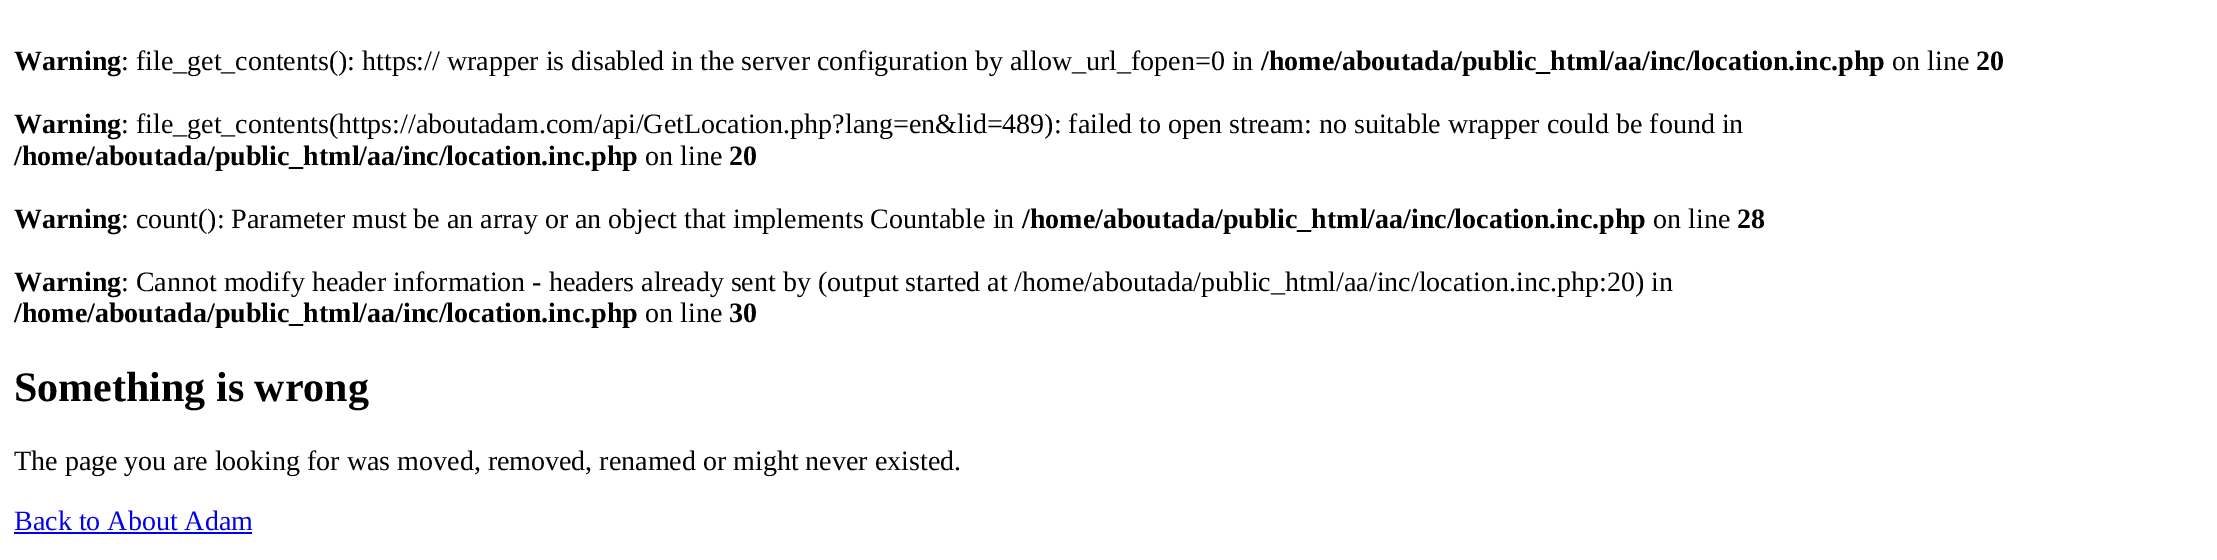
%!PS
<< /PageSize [2217 560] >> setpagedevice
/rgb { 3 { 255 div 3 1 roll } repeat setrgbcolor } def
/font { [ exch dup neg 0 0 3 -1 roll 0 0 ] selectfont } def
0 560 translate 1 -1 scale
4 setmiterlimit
255 255 255 rgb
0 0 2217 560 rectfill
0 0 238 rgb
14 532 238 2 rectfill
/LiberationSerif-Bold 28 font
0 0 0 rgb
14 70 moveto (Warning) show
/LiberationSerif-Regular 28 font
121 70 moveto (: file_get_contents\(\): https:// wrapper is disabled in the server configuration by allow_url_fopen=0 in) show
/LiberationSerif-Bold 28 font
1261 70 moveto (/home/aboutada/public_html/aa/inc/location.inc.php) show
/LiberationSerif-Regular 28 font
1892 70 moveto (on line) show
/LiberationSerif-Bold 28 font
1976 70 moveto (20) show
14 133 moveto (Warning) show
/LiberationSerif-Regular 28 font
121 133 moveto (: file_get_contents\(https://aboutadam.com/api/GetLocation.php?lang=en&lid=489\): failed to open stream: no suitable wrapper could be found in) show
/LiberationSerif-Bold 28 font
14 165 moveto (/home/aboutada/public_html/aa/inc/location.inc.php) show
/LiberationSerif-Regular 28 font
645 165 moveto (on line) show
/LiberationSerif-Bold 28 font
729 165 moveto (20) show
14 228 moveto (Warning) show
/LiberationSerif-Regular 28 font
121 228 moveto (: count\(\): Parameter must be an array or an object that implements Countable in) show
/LiberationSerif-Bold 28 font
1022 228 moveto (/home/aboutada/public_html/aa/inc/location.inc.php) show
/LiberationSerif-Regular 28 font
1653 228 moveto (on line) show
/LiberationSerif-Bold 28 font
1737 228 moveto (28) show
14 291 moveto (Warning) show
/LiberationSerif-Regular 28 font
121 291 moveto (: Cannot modify header information - headers already sent by \(output started at /home/aboutada/public_html/aa/inc/location.inc.php:20\) in) show
/LiberationSerif-Bold 28 font
14 322 moveto (/home/aboutada/public_html/aa/inc/location.inc.php) show
/LiberationSerif-Regular 28 font
645 322 moveto (on line) show
/LiberationSerif-Bold 28 font
729 322 moveto (30) show
/LiberationSerif-Bold 42 font
14 401 moveto (Something is wrong) show
/LiberationSerif-Regular 28 font
14 470 moveto (The page you are looking for was moved, removed, renamed or might never existed.) show
0 0 238 rgb
14 530 moveto (Back to About Adam) show
showpage
